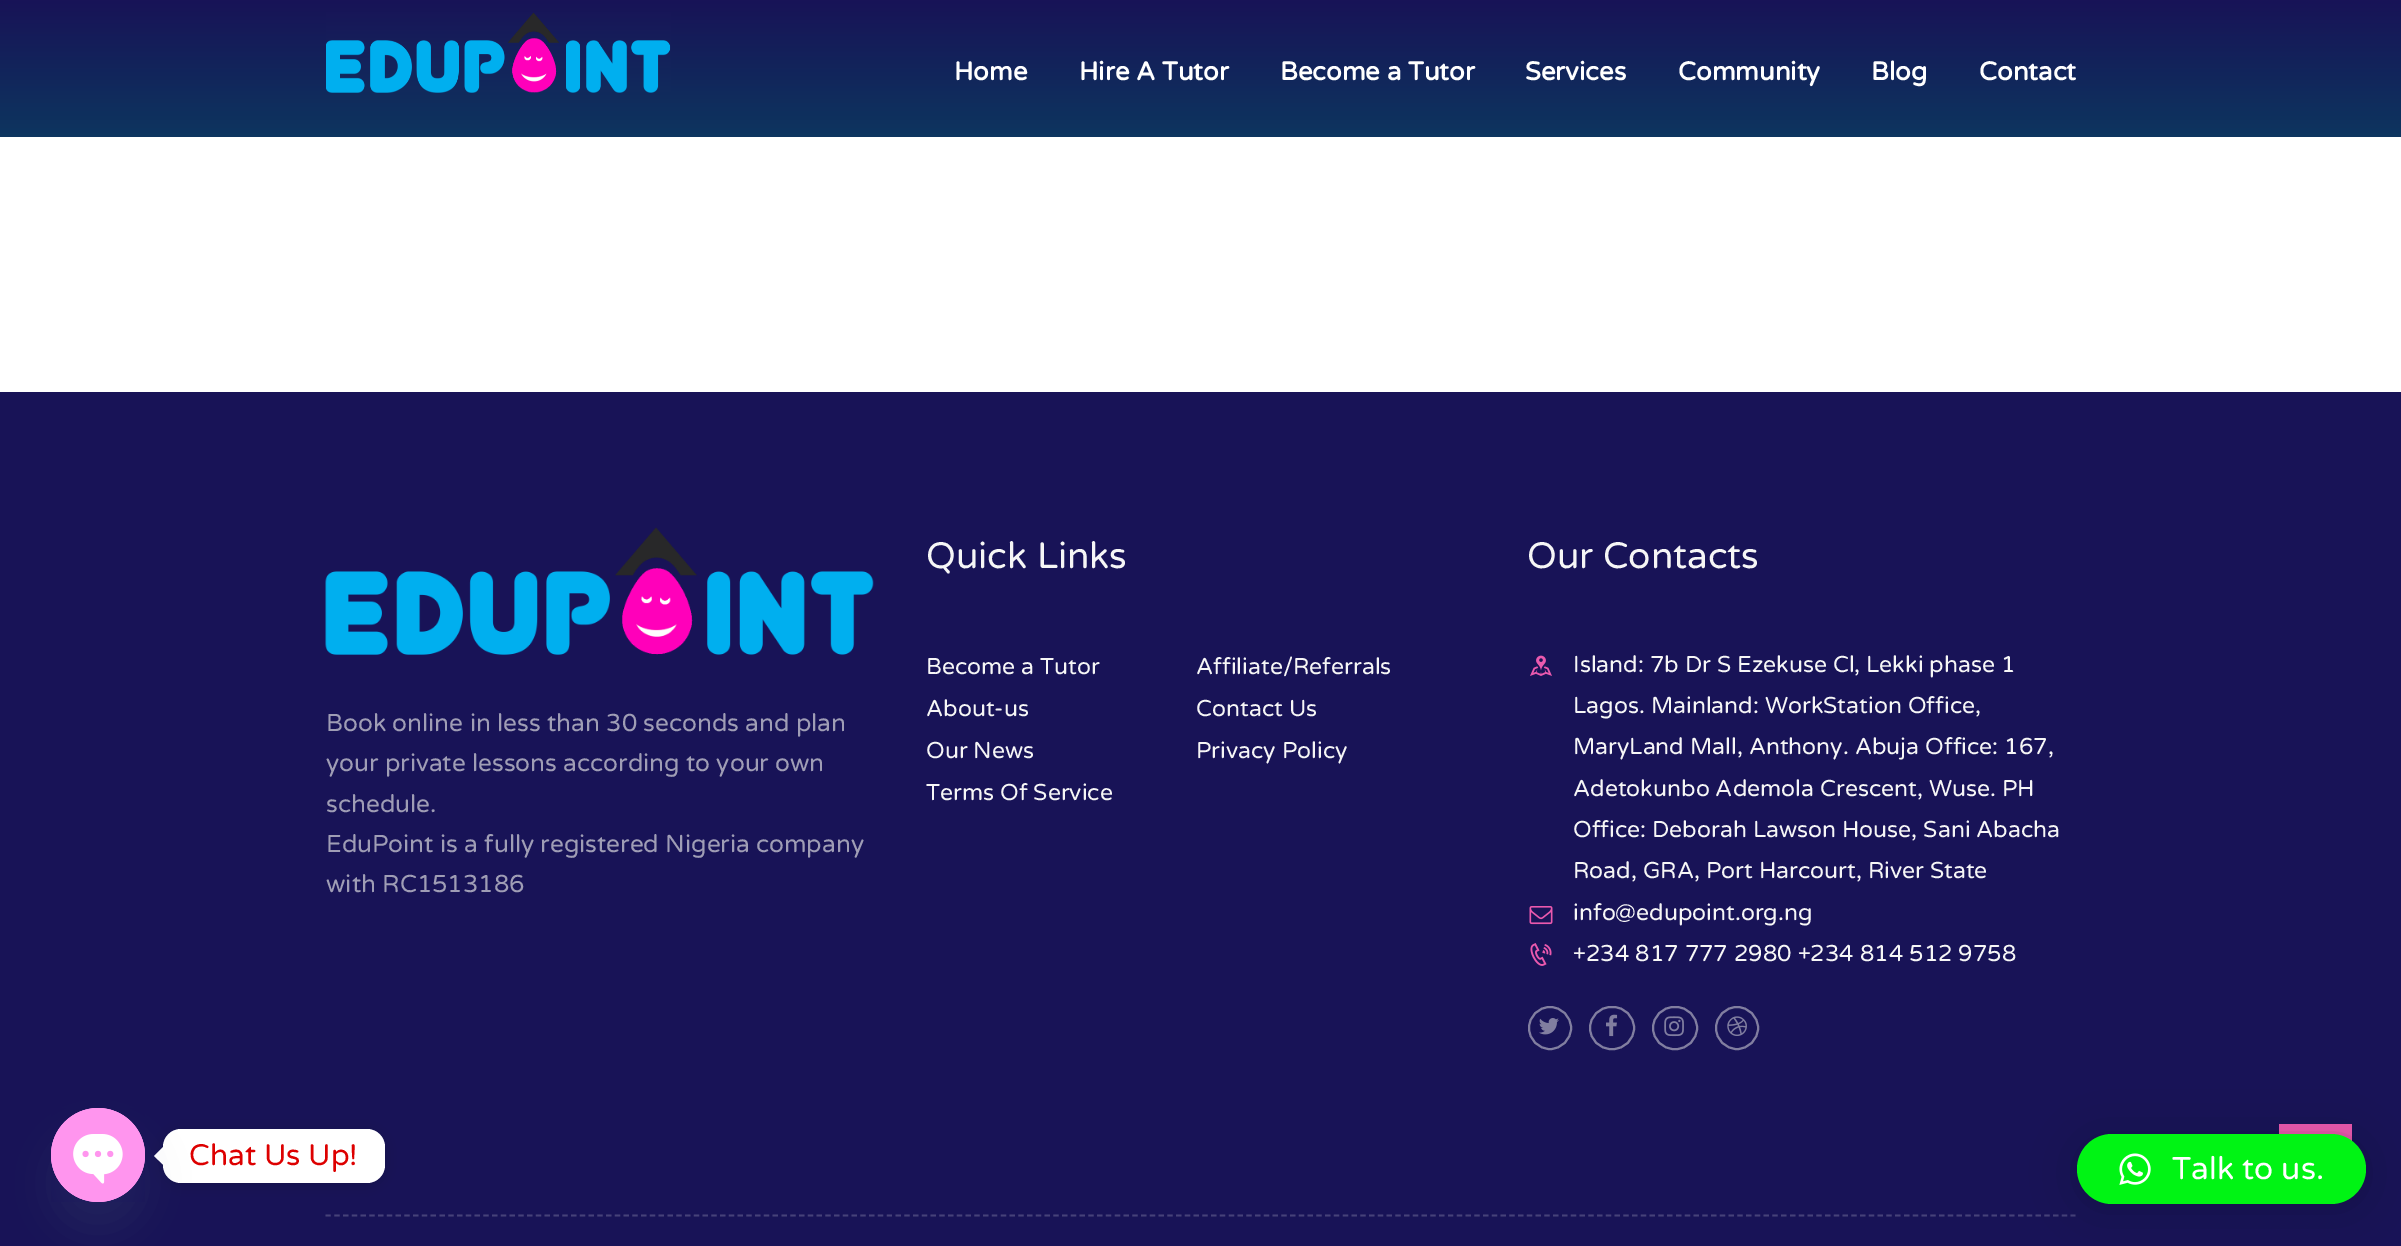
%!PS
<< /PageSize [2401 1246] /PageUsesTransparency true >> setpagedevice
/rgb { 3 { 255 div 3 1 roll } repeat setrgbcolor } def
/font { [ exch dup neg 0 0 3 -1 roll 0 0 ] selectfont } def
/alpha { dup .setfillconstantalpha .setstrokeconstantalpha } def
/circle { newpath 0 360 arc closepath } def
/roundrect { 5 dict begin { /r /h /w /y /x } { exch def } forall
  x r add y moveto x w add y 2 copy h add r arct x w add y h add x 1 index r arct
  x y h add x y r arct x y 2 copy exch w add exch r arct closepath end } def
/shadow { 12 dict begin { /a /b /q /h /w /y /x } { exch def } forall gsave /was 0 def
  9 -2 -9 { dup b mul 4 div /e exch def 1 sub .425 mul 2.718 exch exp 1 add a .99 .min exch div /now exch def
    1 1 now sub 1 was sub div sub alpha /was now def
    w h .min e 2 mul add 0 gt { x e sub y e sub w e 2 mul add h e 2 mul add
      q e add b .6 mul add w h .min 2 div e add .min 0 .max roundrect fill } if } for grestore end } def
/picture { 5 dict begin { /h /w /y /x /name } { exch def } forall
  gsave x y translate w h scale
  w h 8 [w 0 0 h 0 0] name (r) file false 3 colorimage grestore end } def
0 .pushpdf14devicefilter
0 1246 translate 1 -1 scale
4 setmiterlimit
255 255 255 rgb
0 0 2401 1246 rectfill
gsave 0 0 moveto 2401 0 lineto 2401 137 lineto 0 137 lineto closepath clip newpath
<< /ShadingType 2 /ColorSpace /DeviceRGB /Coords [1201 137 1201 0] /Extend [true true] /Function << /FunctionType 3 /Domain [0 1] /Functions [<< /FunctionType 2 /Domain [0 1] /C0 [0.051 0.208 0.373] /C1 [0.051 0.208 0.373] /N 1 >> << /FunctionType 2 /Domain [0 1] /C0 [0.051 0.208 0.373] /C1 [0.094 0.075 0.341] /N 1 >>] /Bounds [0.01] /Encode [0 1 0 1] >> >> shfill grestore
(img/1.rgb) 326 12 345 81 picture
24 19 87 rgb
0 392 2401 854 rectfill
(img/2.rgb) 325 527 549 128 picture
(img/3.rgb) 1530 655 22 21 picture
(img/4.rgb) 1529 906 24 19 picture
(img/5.rgb) 1530 943 22 23 picture
129 126 160 rgb
2 setlinewidth
1550 1028 21 circle stroke
(img/6.rgb) 1539 1018 20 17 picture
1590 1007 44 42 21 roundrect stroke
(img/7.rgb) 1606 1014 12 23 picture
1653 1007 44 42 21 roundrect stroke
(img/8.rgb) 1664 1016 20 21 picture
1737 1028 21 circle stroke
(img/9.rgb) 1727 1016 20 20 picture
70 66 121 rgb
1.8 setlinewidth
[5.25 3.52] 0 setdash
325.5 1215.5 moveto 2075.5 1215.5 lineto stroke
235 89 174 rgb
2279 1124 73 17 rectfill
0 0 0 rgb
163 1131 222 54 18 7 0.15 shadow
255 255 255 rgb
163 1129 222 54 18 roundrect fill
163 1147 moveto 163 1164.5 lineto 154 1156 lineto closepath fill
73 104 126 rgb
51 1136 94 94 47 21 0.16 shadow
(img/10.rgb) 51 1108 94 94 picture
0 0 0 rgb
2077 1138 289 70 35 28 0.16 shadow
2077 1136 289 70 35 5 0.06 shadow
0 244 20 rgb
2077 1134 289 70 35 roundrect fill
(img/11.rgb) 2119 1153 32 32 picture
/VarelaRound-Bold 25.75 font
255 255 255 rgb
[
  [(Home) 954 80]
  [(Hire A Tutor) 1079 80]
  [(Become a Tutor) 1280 80]
  [(Services) 1525 80]
  [(Community) 1678 80]
  [(Blog) 1871 80]
  [(Contact) 1979 80]
] { aload pop moveto show } forall
/VarelaRound-Regular 24.5 font
159 157 181 rgb
[
  [(Book online in less than 30 seconds and plan) 326 731]
  [(your private lessons according to your own) 326 771]
  [(schedule.) 326 812]
  [(EduPoint is a fully registered Nigeria company) 326 852]
  [(with RC1513186) 326 892]
] { aload pop moveto show } forall
/VarelaRound-Regular 36.75 font
246 246 246 rgb
926 568 moveto (Quick Links) show
/VarelaRound-Regular 23 font
[
  [(Become a Tutor) 926 674]
  [(Affiliate/Referrals) 1196 674]
  [(About-us) 926 716]
  [(Contact Us) 1196 716]
  [(Our News) 926 758]
  [(Privacy Policy) 1196 758]
  [(Terms Of Service) 926 800]
] { aload pop moveto show } forall
/VarelaRound-Regular 36.75 font
1527 568 moveto (Our Contacts) show
/VarelaRound-Regular 23 font
[
  [(Island: 7b Dr S Ezekuse Cl, Lekki phase 1) 1573 672]
  [(Lagos. Mainland: WorkStation Office,) 1573 713]
  [(MaryLand Mall, Anthony. Abuja Office: 167,) 1573 754]
  [(Adetokunbo Ademola Crescent, Wuse. PH) 1573 796]
  [(Office: Deborah Lawson House, Sani Abacha) 1573 837]
  [(Road, GRA, Port Harcourt, River State) 1573 878]
  [(info@edupoint.org.ng) 1573 920]
  [(+234 817 777 2980 +234 814 512 9758) 1573 961]
] { aload pop moveto show } forall
/VarelaRound-Regular 29.75 font
221 0 0 rgb
189 1165 moveto (Chat Us Up!) show
/VarelaRound-Regular 31.5 font
255 255 255 rgb
2172 1179 moveto (Talk to us.) show
.poppdf14devicefilter showpage
